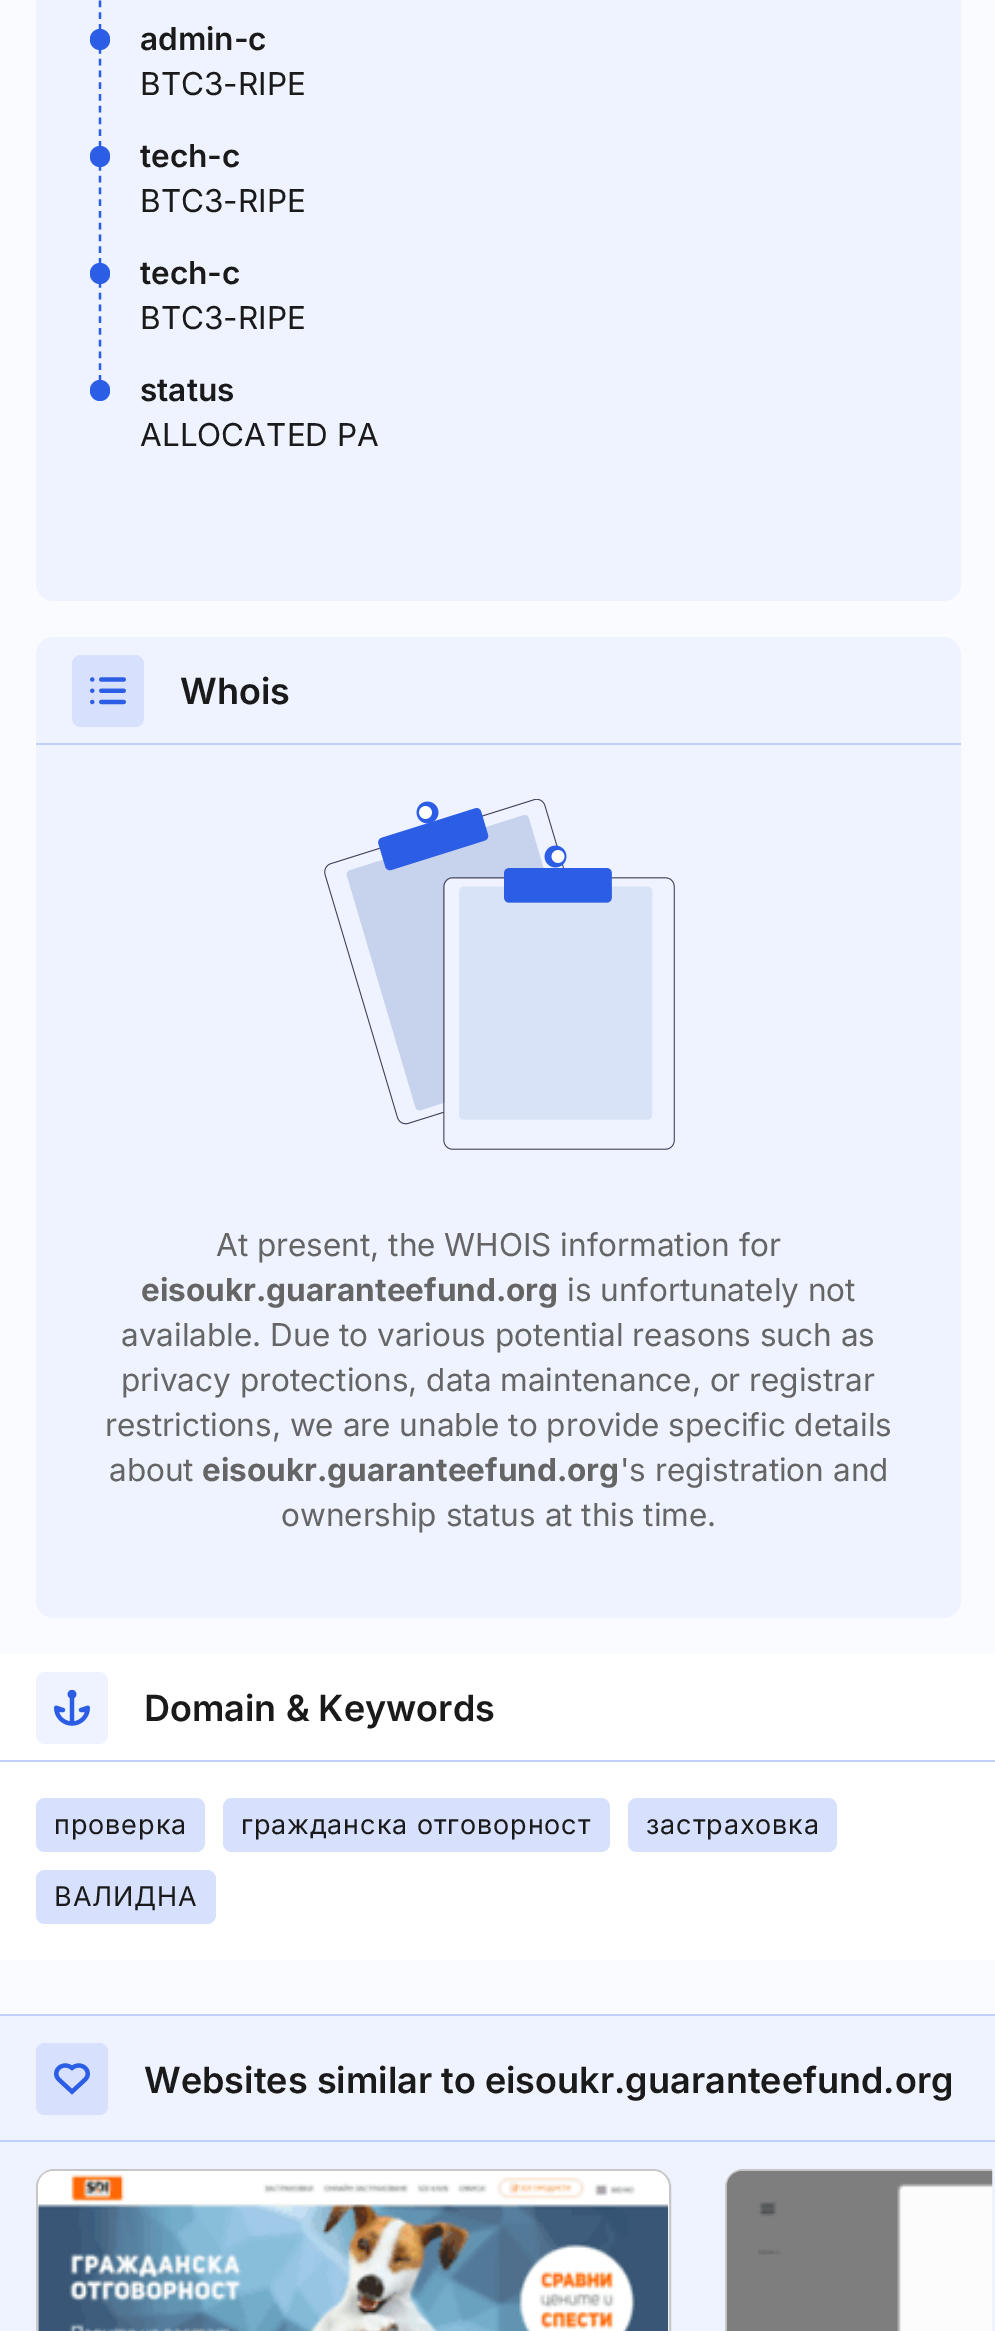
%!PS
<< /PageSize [995 2331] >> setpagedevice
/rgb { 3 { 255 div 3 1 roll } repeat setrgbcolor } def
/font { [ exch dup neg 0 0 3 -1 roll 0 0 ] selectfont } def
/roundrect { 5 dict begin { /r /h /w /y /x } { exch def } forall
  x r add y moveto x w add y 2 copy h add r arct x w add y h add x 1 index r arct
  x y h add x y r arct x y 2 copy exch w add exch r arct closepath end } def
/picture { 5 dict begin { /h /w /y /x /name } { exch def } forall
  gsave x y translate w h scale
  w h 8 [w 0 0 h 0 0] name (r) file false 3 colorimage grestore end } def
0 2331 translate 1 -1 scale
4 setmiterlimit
249 251 255 rgb
0 0 995 2331 rectfill
238 243 255 rgb
36 -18 925 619 18 roundrect fill
44 93 229 rgb
2.2 setlinewidth
[6.75 5] 0 setdash
100 -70 moveto 100 43 lineto stroke
90 29 20 21 10 roundrect fill
100 47 moveto 100 160 lineto stroke
90 146 20 21 10 roundrect fill
100 164 moveto 100 277 lineto stroke
90 263 20 21 10 roundrect fill
100 281 moveto 100 394 lineto stroke
90 380 20 21 10 roundrect fill
238 243 255 rgb
36 637 925 981 18 roundrect fill
215 225 254 rgb
72 655 72 72 9 roundrect fill
(img/1.rgb) 90 677 36 28 picture
191 208 253 rgb
36 743 925 2 rectfill
(img/2.rgb) 324 799 351 351 picture
255 255 255 rgb
0 1654 995 306 rectfill
238 243 255 rgb
36 1672 72 72 9 roundrect fill
(img/3.rgb) 54 1690 36 36 picture
191 208 253 rgb
0 1760 995 2 rectfill
215 225 254 rgb
36 1798 169 54 9 roundrect fill
223 1798 387 54 9 roundrect fill
628 1798 209 54 9 roundrect fill
36 1870 180 54 9 roundrect fill
238 243 255 rgb
0 2016 995 315 rectfill
191 208 253 rgb
0 2014 995 2 rectfill
215 225 254 rgb
36 2043 72 72 9 roundrect fill
(img/4.rgb) 54 2063 36 32 picture
191 208 253 rgb
0 2140 995 2 rectfill
255 255 255 rgb
37 2170 633 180 17 roundrect gsave fill grestore
199 199 199 rgb
2 setlinewidth
[] 0 setdash
stroke
(img/5.rgb) 38 2171 631 160 picture
gsave
0 2142 992 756 rectclip
726 2170 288 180 17 roundrect stroke
grestore
(img/6.rgb) 726 2170 267 161 picture
/Inter-SemiBold 31.5 font
26 26 26 rgb
140 50 moveto (admin-c) show
/Inter-Regular 31.5 font
140 95 moveto (BTC3-RIPE) show
/Inter-SemiBold 31.5 font
140 167 moveto (tech-c) show
/Inter-Regular 31.5 font
140 212 moveto (BTC3-RIPE) show
/Inter-SemiBold 31.5 font
140 284 moveto (tech-c) show
/Inter-Regular 31.5 font
140 329 moveto (BTC3-RIPE) show
/Inter-SemiBold 31.5 font
140 401 moveto (status) show
/Inter-Regular 31.5 font
140 446 moveto (ALLOCATED PA) show
/Inter-SemiBold 36 font
180 704 moveto (Whois) show
/Inter-Regular 31.5 font
101 101 101 rgb
216 1256 moveto (At present, the WHOIS information for) show
/Inter-Bold 31.5 font
141 1301 moveto (eisoukr.guaranteefund.org) show
/Inter-Regular 31.5 font
[
  [(is unfortunately not) 567 1301]
  [(available. Due to various potential reasons such as) 121 1346]
  [(privacy protections, data maintenance, or registrar) 121 1391]
  [(restrictions, we are unable to provide specific details) 105 1436]
  [(about) 109 1481]
] { aload pop moveto show } forall
/Inter-Bold 31.5 font
202 1481 moveto (eisoukr.guaranteefund.org) show
/Inter-Regular 31.5 font
620 1481 moveto ('s registration and) show
281 1526 moveto (ownership status at this time.) show
/Inter-SemiBold 36 font
26 26 26 rgb
144 1721 moveto (Domain & Keywords) show
/Inter-Regular 27 font
54 1834 moveto 0.9 0 (проверка) ashow
241 1834 moveto 0.9 0 (гражданска отговорност) ashow
646 1834 moveto 0.9 0 (застраховка) ashow
54 1906 moveto 0.9 0 (ВАЛИДНА) ashow
/Inter-SemiBold 36 font
144 2093 moveto (Websites similar to eisoukr.guaranteefund.org) show
showpage
